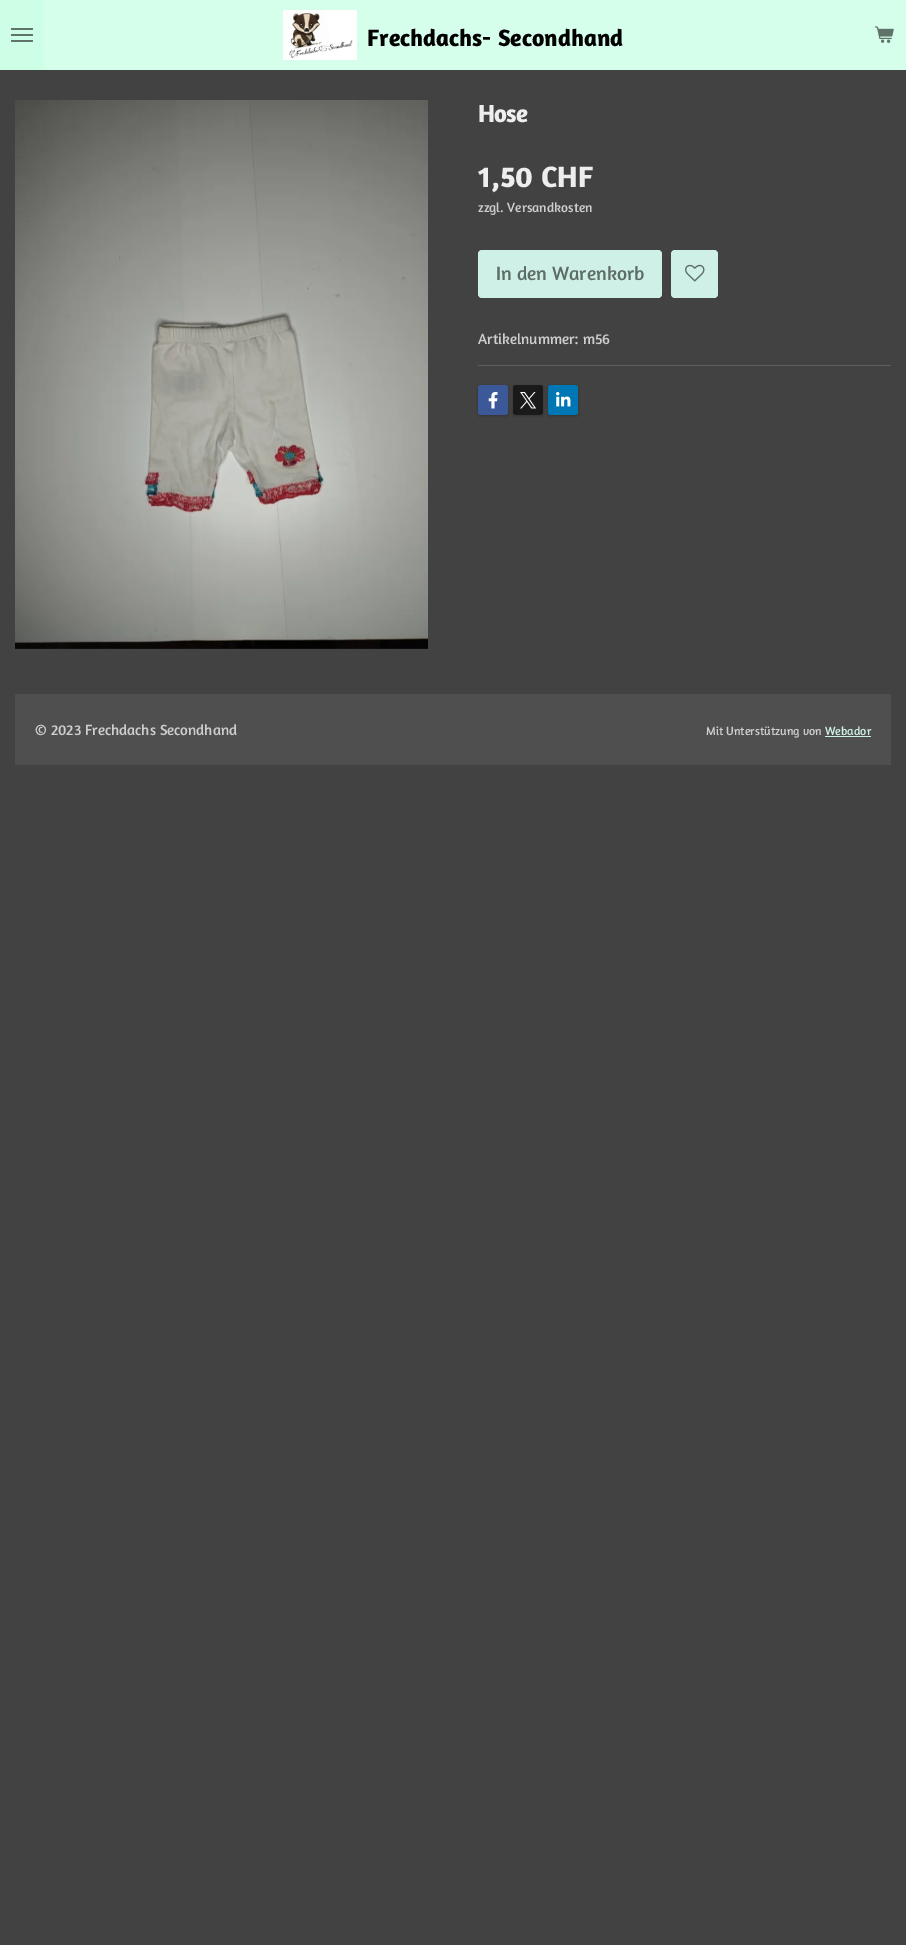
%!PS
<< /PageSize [906 1945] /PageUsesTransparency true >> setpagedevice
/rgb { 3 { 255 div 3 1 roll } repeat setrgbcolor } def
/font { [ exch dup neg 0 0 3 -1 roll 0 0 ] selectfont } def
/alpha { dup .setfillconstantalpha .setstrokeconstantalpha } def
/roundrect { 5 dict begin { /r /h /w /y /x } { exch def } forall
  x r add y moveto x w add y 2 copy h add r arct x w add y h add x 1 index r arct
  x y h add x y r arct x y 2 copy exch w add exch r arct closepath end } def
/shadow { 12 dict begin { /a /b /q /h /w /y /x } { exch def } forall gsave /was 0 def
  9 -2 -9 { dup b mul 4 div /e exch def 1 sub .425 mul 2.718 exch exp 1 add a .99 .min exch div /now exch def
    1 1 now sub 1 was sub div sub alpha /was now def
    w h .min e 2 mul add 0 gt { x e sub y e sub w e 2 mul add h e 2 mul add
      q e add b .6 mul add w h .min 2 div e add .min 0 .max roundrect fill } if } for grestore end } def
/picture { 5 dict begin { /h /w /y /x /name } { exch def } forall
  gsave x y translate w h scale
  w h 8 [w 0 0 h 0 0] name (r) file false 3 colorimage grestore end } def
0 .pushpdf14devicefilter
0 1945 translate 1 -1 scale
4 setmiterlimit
66 66 66 rgb
0 0 906 1945 rectfill
204 255 230 rgb
0 0 44 70 rectfill
96 115 106 rgb
11 34 22 2 1 roundrect fill
11 28 22 2 1 roundrect fill
11 40 22 2 1 roundrect fill
214 255 235 rgb
44 0 862 70 rectfill
(img/1.rgb) 875 26 19 17 picture
(img/2.rgb) 283 10 74 50 picture
(img/3.rgb) 15 100 413 549 picture
206 240 230 rgb
478 250 184 48 4 roundrect fill
671 250 47 48 4 roundrect fill
(img/4.rgb) 685 264 20 18 picture
94 94 94 rgb
478 365 413 1 rectfill
0 0 0 rgb
478 386 30 30 3 1.5 0.2 shadow
59 89 152 rgb
478 385 30 30 3 roundrect fill
(img/5.rgb) 488 392 10 17 picture
0 0 0 rgb
513 386 30 30 3 1.5 0.2 shadow
26 26 26 rgb
513 385 30 30 3 roundrect fill
(img/6.rgb) 520 392 16 17 picture
0 0 0 rgb
548 386 30 30 3 1.5 0.2 shadow
0 119 181 rgb
548 385 30 30 3 roundrect fill
(img/7.rgb) 556 392 15 15 picture
79 79 79 rgb
15 694 876 71 rectfill
206 240 230 rgb
825 736 46 1 rectfill
/Amaranth-Bold 24 font
0 0 0 rgb
367 46 moveto (Frechdachs- Secondhand) show
/Amaranth-Bold 25 font
238 238 238 rgb
478 122 moveto -1 0 (Hose) ashow
/Amaranth-Bold 30 font
478 187 moveto (1,50 CHF) show
/Amaranth-Regular 13.5 font
206 206 206 rgb
478 212 moveto (zzgl. Versandkosten) show
/Amaranth-Regular 19.5 font
93 108 103 rgb
496 280 moveto (In den Warenkorb) show
/Amaranth-Regular 15 font
206 206 206 rgb
478 344 moveto (Artikelnummer: m56) show
35 735 moveto (© 2023 Frechdachs Secondhand) show
/Amaranth-Regular 12 font
706 735 moveto (Mit Unterstützung von) show
206 240 230 rgb
825 735 moveto (Webador) show
.poppdf14devicefilter showpage
